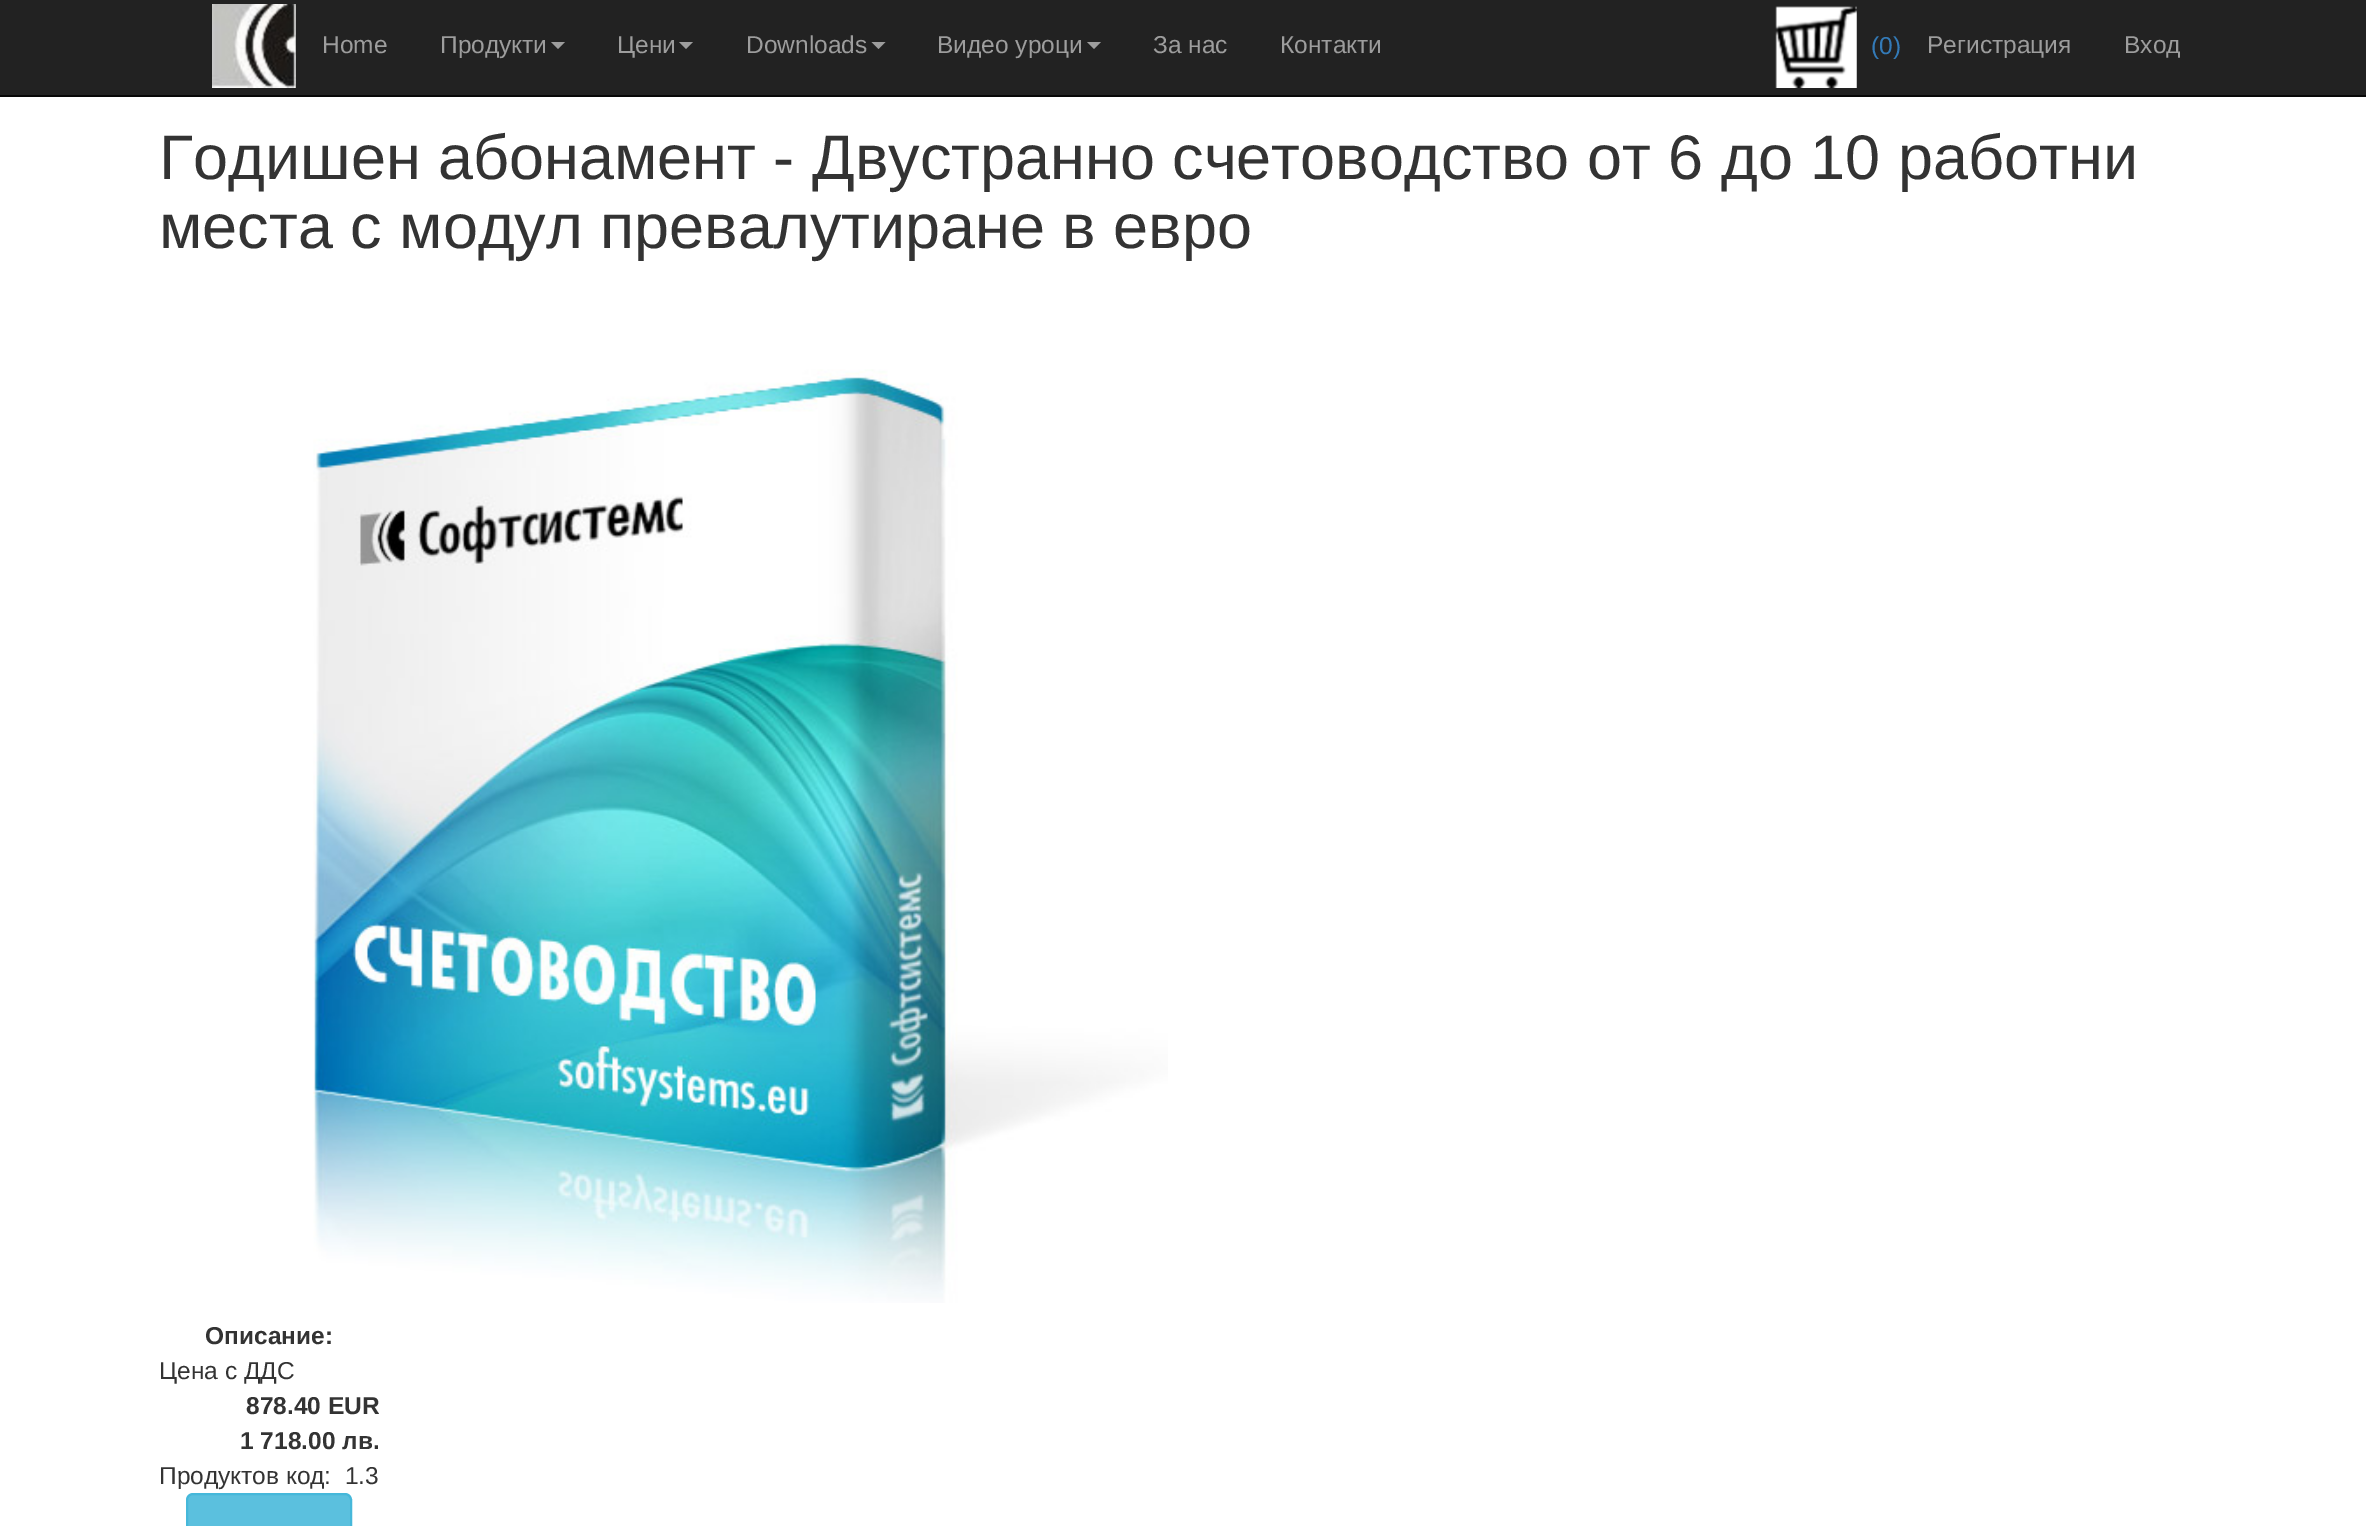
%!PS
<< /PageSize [2366 1526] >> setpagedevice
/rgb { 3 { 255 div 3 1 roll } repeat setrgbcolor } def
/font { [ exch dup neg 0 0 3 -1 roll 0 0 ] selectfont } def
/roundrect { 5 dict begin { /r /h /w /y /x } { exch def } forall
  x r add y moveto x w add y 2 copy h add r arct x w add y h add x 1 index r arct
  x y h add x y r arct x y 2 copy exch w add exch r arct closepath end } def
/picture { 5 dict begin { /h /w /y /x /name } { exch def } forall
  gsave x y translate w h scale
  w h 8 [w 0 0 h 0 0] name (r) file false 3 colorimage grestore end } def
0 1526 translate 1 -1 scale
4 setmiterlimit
255 255 255 rgb
0 0 2366 1526 rectfill
34 34 34 rgb
0 0 2366 95 rectfill
8 8 8 rgb
0 95 2366 2 rectfill
(img/1.rgb) 212 4 84 84 picture
157 157 157 rgb
551 42 moveto 565 42 lineto 558 49 lineto closepath fill
679 42 moveto 693 42 lineto 686 49 lineto closepath fill
871.5 42 moveto 885.5 42 lineto 878.5 49 lineto closepath fill
1087 42 moveto 1101 42 lineto 1094 49 lineto closepath fill
(img/2.rgb) 1775 6 82 82 picture
(img/3.rgb) 313 369 855 934 picture
91 192 222 rgb
187 1494 164 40 6 roundrect gsave fill grestore
70 184 218 rgb
2 setlinewidth
stroke
/LiberationSans-Regular 24.5 font
157 157 157 rgb
[
  [(Home) 322 53]
  [(Продукти) 440 53]
  [(Цени) 617 53]
  [(Downloads) 746 53]
  [(Видео уроци) 937 53]
  [(За нас) 1153 53]
  [(Контакти) 1280 53]
] { aload pop moveto show } forall
51 122 183 rgb
1871 54 moveto (\(0\)) show
157 157 157 rgb
1927 53 moveto (Регистрация) show
2124 53 moveto (Вход) show
/LiberationSans-Regular 63 font
51 51 51 rgb
159 179 moveto (Годишен абонамент - Двустранно счетоводство от 6 до 10 работни) show
159 248 moveto (места с модул превалутиране в евро) show
/LiberationSans-Bold 24.5 font
205 1344 moveto (Описание:) show
/LiberationSans-Regular 24.5 font
159 1379 moveto (Цена с ДДС) show
/LiberationSans-Bold 24.5 font
246 1414 moveto (878.40 EUR) show
240 1449 moveto (1 718.00 лв.) show
/LiberationSans-Regular 24.5 font
159 1484 moveto (Продуктов код:  1.3) show
showpage
